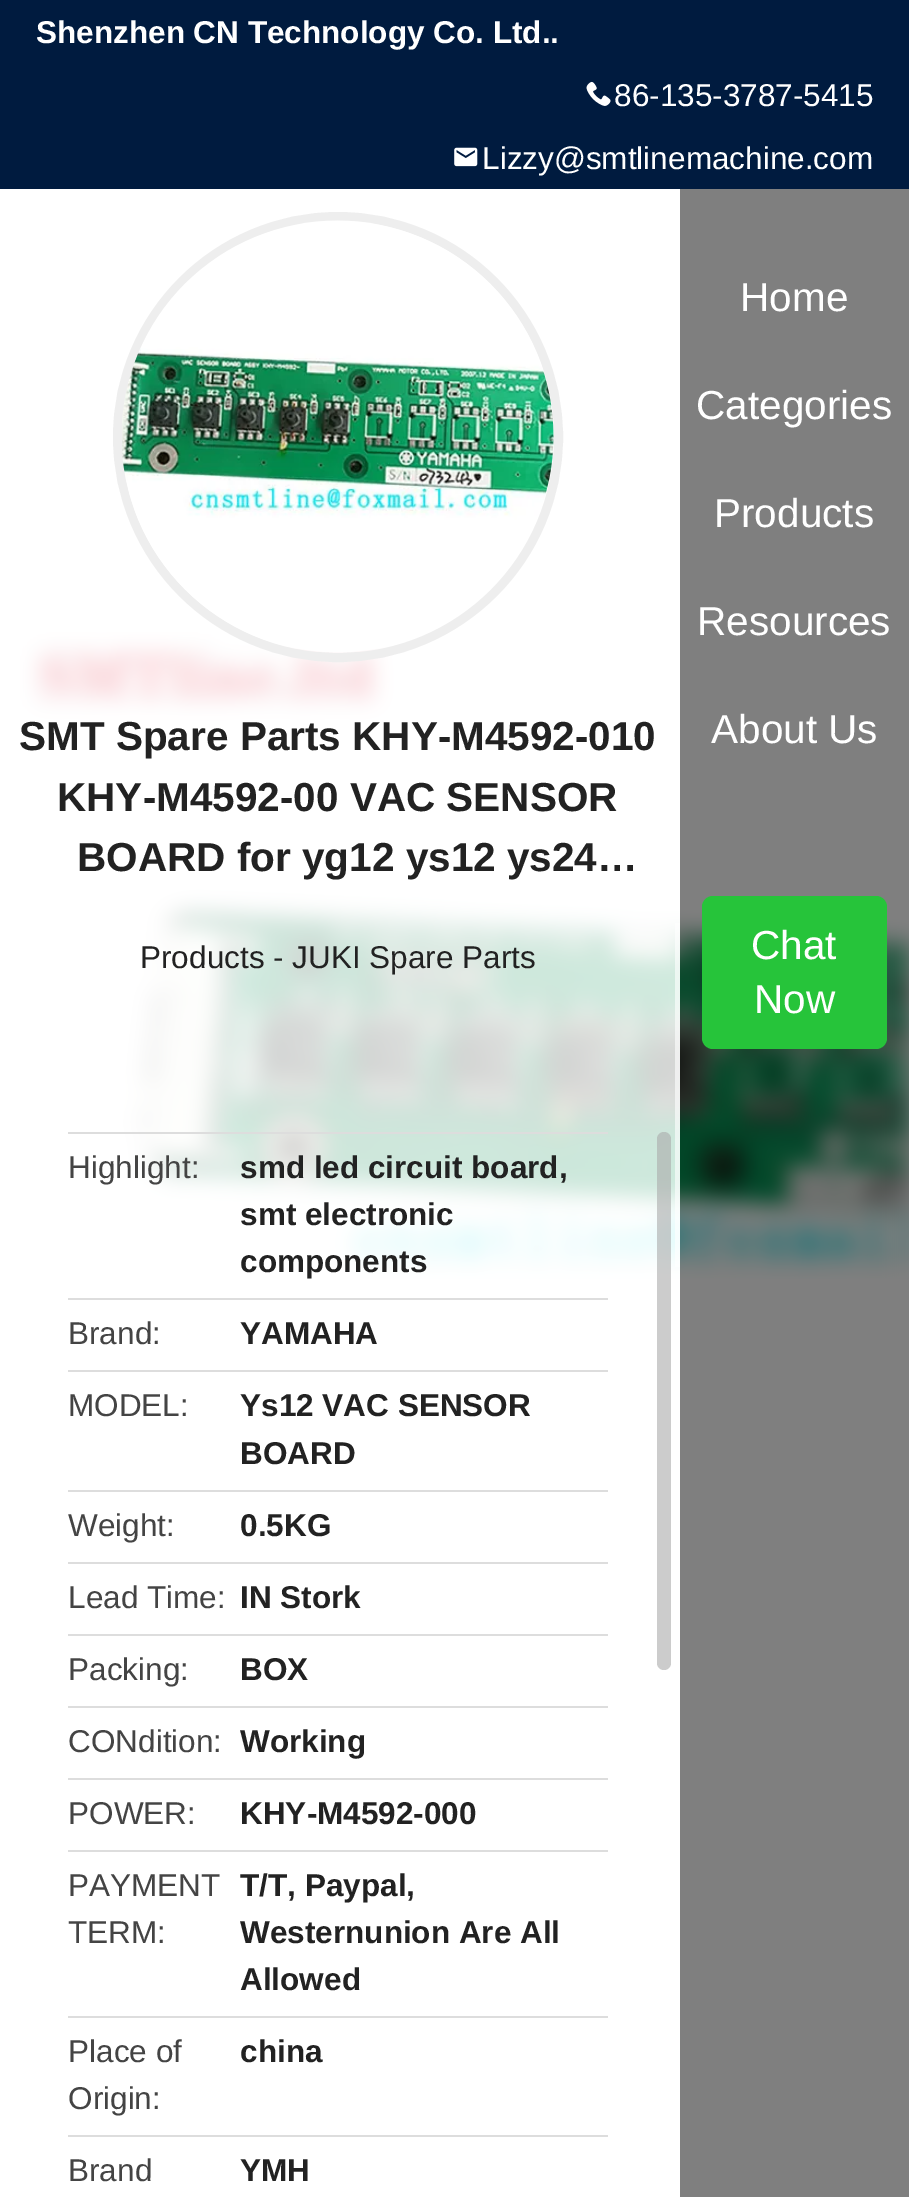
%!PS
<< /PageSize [909 2197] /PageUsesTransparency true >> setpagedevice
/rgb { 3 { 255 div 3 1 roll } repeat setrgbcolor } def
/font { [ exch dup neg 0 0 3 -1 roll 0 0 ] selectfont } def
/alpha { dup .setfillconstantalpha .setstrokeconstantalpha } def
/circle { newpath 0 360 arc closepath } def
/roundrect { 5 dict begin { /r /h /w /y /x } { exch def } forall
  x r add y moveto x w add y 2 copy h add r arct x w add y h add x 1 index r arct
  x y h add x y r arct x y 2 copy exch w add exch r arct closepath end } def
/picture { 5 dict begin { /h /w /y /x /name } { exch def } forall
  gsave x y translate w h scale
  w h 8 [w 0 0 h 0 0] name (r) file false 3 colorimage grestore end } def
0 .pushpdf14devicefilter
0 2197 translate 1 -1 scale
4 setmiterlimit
255 255 255 rgb
0 0 909 2197 rectfill
0 27 63 rgb
0 0 909 189 rectfill
(img/1.rgb) 586 81 25 25 picture
(img/2.rgb) 454 147 24 20 picture
(img/3.rgb) 20 632 889 647 picture
0.5 alpha
0 0 0 rgb
680 189 229 2008 rectfill
1 alpha
38 196 58 rgb
702 896 185 153 11 roundrect fill
0.8 alpha
255 255 255 rgb
20 632 660 647 rectfill
0.6 alpha
675 923 5 344 rectfill
1 alpha
238 238 238 rgb
9 setlinewidth
338 437 220.5 circle stroke
(img/4.rgb) 122 220 432 432 picture
[
  [68 1132 540 2 221 221 221]
  [68 1298 540 2 221 221 221]
  [68 1370 540 2 221 221 221]
  [68 1490 540 2 221 221 221]
  [68 1562 540 2 221 221 221]
  [68 1634 540 2 221 221 221]
  [68 1706 540 2 221 221 221]
  [68 1778 540 2 221 221 221]
  [68 1850 540 2 221 221 221]
  [68 2016 540 2 221 221 221]
  [68 2135 540 2 221 221 221]
] { aload pop rgb rectfill } forall
0.6 alpha
170 170 170 rgb
657 1132 14 538 7 roundrect fill
/LiberationSans-Bold 31.5 font
1 alpha
255 255 255 rgb
36 43 moveto (Shenzhen CN Technology Co. Ltd..) show
/LiberationSans-Regular 31.5 font
614 106 moveto (86-135-3787-5415) show
482 169 moveto (Lizzy@smtlinemachine.com) show
/LiberationSans-Regular 40.5 font
[
  [(Home) 740 311]
  [(Categories) 696 419]
  [(Products) 714 527]
  [(Resources) 697 635]
  [(About Us) 711 743]
  [(Chat) 751 959]
  [(Now) 754 1013]
] { aload pop moveto show } forall
/LiberationSans-Bold 40.5 font
34 34 34 rgb
[
  [(SMT Spare Parts KHY-M4592-010) 19 750]
  [(KHY-M4592-00 VAC SENSOR) 57 811]
  [(BOARD for yg12 ys12 ys24…) 77 871]
] { aload pop moveto show } forall
/LiberationSans-Regular 31.5 font
140 968 moveto (Products - JUKI Spare Parts) show
68 68 68 rgb
68 1178 moveto (Highlight:) show
/LiberationSans-Bold 31.5 font
34 34 34 rgb
[
  [(smd led circuit board,) 240 1178]
  [(smt electronic) 240 1225]
  [(components) 240 1272]
] { aload pop moveto show } forall
/LiberationSans-Regular 31.5 font
68 68 68 rgb
68 1344 moveto (Brand:) show
/LiberationSans-Bold 31.5 font
34 34 34 rgb
240 1344 moveto (YAMAHA) show
/LiberationSans-Regular 31.5 font
68 68 68 rgb
68 1416 moveto (MODEL:) show
/LiberationSans-Bold 31.5 font
34 34 34 rgb
240 1416 moveto (Ys12 VAC SENSOR) show
240 1464 moveto (BOARD) show
/LiberationSans-Regular 31.5 font
68 68 68 rgb
68 1536 moveto (Weight:) show
/LiberationSans-Bold 31.5 font
34 34 34 rgb
240 1536 moveto (0.5KG) show
/LiberationSans-Regular 31.5 font
68 68 68 rgb
68 1608 moveto (Lead Time:) show
/LiberationSans-Bold 31.5 font
34 34 34 rgb
240 1608 moveto (IN Stork) show
/LiberationSans-Regular 31.5 font
68 68 68 rgb
68 1680 moveto (Packing:) show
/LiberationSans-Bold 31.5 font
34 34 34 rgb
240 1680 moveto (BOX) show
/LiberationSans-Regular 31.5 font
68 68 68 rgb
68 1752 moveto (CONdition:) show
/LiberationSans-Bold 31.5 font
34 34 34 rgb
240 1752 moveto (Working) show
/LiberationSans-Regular 31.5 font
68 68 68 rgb
68 1824 moveto (POWER:) show
/LiberationSans-Bold 31.5 font
34 34 34 rgb
240 1824 moveto (KHY-M4592-000) show
/LiberationSans-Regular 31.5 font
68 68 68 rgb
68 1896 moveto (PAYMENT) show
68 1943 moveto (TERM:) show
/LiberationSans-Bold 31.5 font
34 34 34 rgb
[
  [(T/T, Paypal,) 240 1896]
  [(Westernunion Are All) 240 1943]
  [(Allowed) 240 1990]
] { aload pop moveto show } forall
/LiberationSans-Regular 31.5 font
68 68 68 rgb
68 2062 moveto (Place of) show
68 2109 moveto (Origin:) show
/LiberationSans-Bold 31.5 font
34 34 34 rgb
240 2062 moveto (china) show
/LiberationSans-Regular 31.5 font
68 68 68 rgb
68 2181 moveto (Brand) show
/LiberationSans-Bold 31.5 font
34 34 34 rgb
240 2181 moveto (YMH) show
.poppdf14devicefilter showpage
